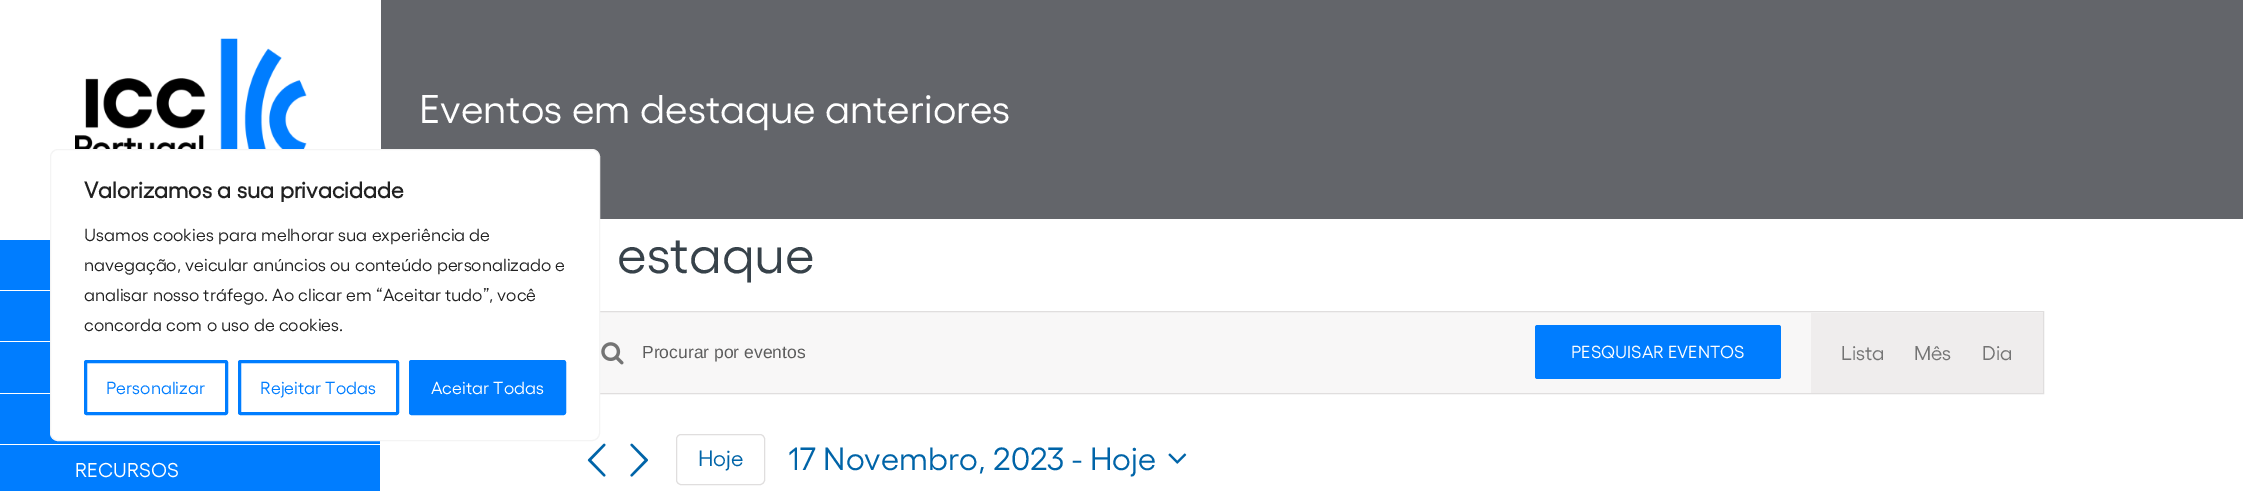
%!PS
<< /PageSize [2243 491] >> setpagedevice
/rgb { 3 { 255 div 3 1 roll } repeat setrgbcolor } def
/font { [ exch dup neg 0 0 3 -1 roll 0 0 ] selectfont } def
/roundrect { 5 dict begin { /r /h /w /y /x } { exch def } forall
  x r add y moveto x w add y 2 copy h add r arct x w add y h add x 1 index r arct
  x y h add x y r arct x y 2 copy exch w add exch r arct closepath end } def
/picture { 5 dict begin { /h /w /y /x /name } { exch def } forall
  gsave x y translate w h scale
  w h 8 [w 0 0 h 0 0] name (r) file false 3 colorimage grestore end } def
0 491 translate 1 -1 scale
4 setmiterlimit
255 255 255 rgb
0 0 2243 491 rectfill
99 101 106 rgb
381 0 1862 219 rectfill
0 125 255 rgb
0 240 380 251 rectfill
(img/1.rgb) 75 38 232 111 picture
[
  [0 290 50 1 255 255 255]
  [0 341 50 1 255 255 255]
  [0 393 50 1 255 255 255]
  [0 444 381 1 255 255 255]
  [600 312 1443 81 248 247 247]
] { aload pop rgb rectfill } forall
224 222 222 rgb
581.5 311.5 1462 82 rectstroke
(img/2.rgb) 601 342 23 23 picture
0 125 255 rgb
1535 325 246 54 2.5 roundrect fill
239 237 237 rgb
1811 313 232 80 rectfill
(img/3.rgb) 587 443 19 34 picture
(img/4.rgb) 630 443 18 34 picture
224 222 222 rgb
676.5 434.5 88 50 4.5 roundrect stroke
(img/5.rgb) 1168 453 19 11 picture
255 255 255 rgb
50.5 149.5 549 291 7.5 roundrect gsave fill grestore
244 244 244 rgb
stroke
0 125 255 rgb
3 setlinewidth
85.5 361.5 141 52 1 roundrect stroke
239.5 361.5 158 52 1 roundrect stroke
410.5 361.5 154 52 1 roundrect gsave fill grestore
stroke
/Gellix-Regular 40 font
255 255 255 rgb
419 123 moveto (Eventos em destaque anteriores) show
/Gellix-Regular 20 font
75 477 moveto (RECURSOS) show
/Gellix-Regular 52.5 font
55 66 74 rgb
617 273 moveto (estaque) show
/LiberationSans-Regular 17.5 font
93 93 93 rgb
642 358 moveto (Procurar por eventos) show
/Gellix-Regular 17.5 font
255 255 255 rgb
1571 358 moveto (PESQUISAR EVENTOS) show
/Gellix-Regular 20 font
116 116 116 rgb
[
  [(Lista) 1841 360]
  [(Mês) 1914 360]
  [(Dia) 1982 360]
] { aload pop moveto show } forall
/Gellix-Regular 22 font
0 100 168 rgb
698 466 moveto (Hoje) show
/Gellix-Regular 32 font
788 470 moveto (17 Novembro, 2023 - Hoje) show
/Gellix-Bold 22.5 font
33 33 33 rgb
84 198 moveto (Valorizamos a sua privacidade) show
/Gellix-Regular 17.5 font
[
  [(Usamos cookies para melhorar sua experiência de) 84 241]
  [(navegação, veicular anúncios ou conteúdo personalizado e) 84 271]
  [(analisar nosso tráfego. Ao clicar em “Aceitar tudo”, você) 84 301]
  [(concorda com o uso de cookies.) 84 331]
] { aload pop moveto show } forall
0 125 255 rgb
106 394 moveto (Personalizar) show
260 394 moveto (Rejeitar Todas) show
255 255 255 rgb
431 394 moveto (Aceitar Todas) show
showpage
